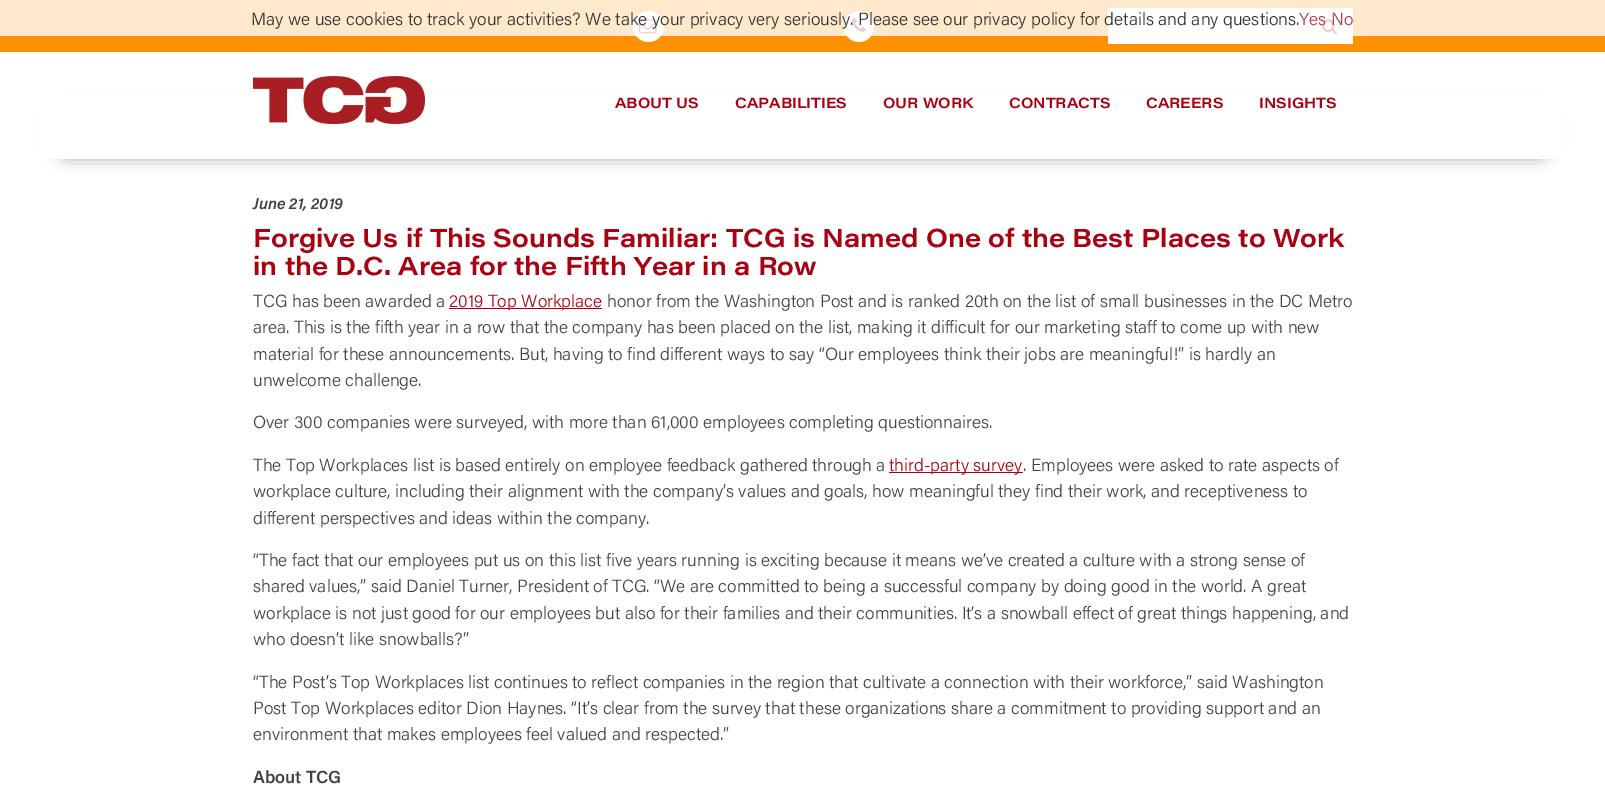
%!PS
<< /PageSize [1605 799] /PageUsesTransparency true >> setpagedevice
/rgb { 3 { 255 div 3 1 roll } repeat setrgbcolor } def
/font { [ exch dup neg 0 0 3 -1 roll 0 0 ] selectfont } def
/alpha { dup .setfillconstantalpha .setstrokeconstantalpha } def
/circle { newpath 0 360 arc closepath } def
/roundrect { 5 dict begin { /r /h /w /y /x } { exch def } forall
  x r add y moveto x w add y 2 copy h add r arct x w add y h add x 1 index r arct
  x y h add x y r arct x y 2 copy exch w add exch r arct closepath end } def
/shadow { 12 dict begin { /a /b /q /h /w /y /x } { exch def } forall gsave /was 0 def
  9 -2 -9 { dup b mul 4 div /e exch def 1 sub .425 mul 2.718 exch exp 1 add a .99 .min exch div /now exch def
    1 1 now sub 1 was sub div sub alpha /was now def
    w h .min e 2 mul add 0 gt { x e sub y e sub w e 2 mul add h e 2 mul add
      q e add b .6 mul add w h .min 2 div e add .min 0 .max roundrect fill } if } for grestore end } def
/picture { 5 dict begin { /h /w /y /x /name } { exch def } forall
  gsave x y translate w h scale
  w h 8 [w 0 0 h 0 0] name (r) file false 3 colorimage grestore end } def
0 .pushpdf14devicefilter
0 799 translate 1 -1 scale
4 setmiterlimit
255 255 255 rgb
0 0 1605 799 rectfill
255 144 1 rgb
0 0 1605 52 rectfill
255 255 255 rgb
648.5 26.5 15.5 circle fill
(img/1.rgb) 639 19 18 15 picture
844 11 30 31 15 roundrect fill
(img/2.rgb) 852 18 14 14 picture
1108 8 245 36 rectfill
(img/3.rgb) 1322 19 15 16 picture
0.8 alpha
0 0 1605 36 rectfill
1 alpha
0 0 0 rgb
53 105 1500 54 15 7.5 0.3 shadow
255 255 255 rgb
39 91 1528 68 rectfill
(img/4.rgb) 253 76 172 48 picture
169 1 18 rgb
449 308 153 1 rectfill
889 472 134 1 rectfill
/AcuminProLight-Light 17.6 font
51 48 43 rgb
251 25 moveto (May we use cookies to track your activities? We take your privacy very seriously. Please see our privacy policy for details and any questions.) show
186 51 65 rgb
1299 25 moveto (Yes No) show
/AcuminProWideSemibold-SemiBold 14.5 font
169 1 18 rgb
[
  [(ABOUT US) 615 108]
  [(CAPABILITIES) 735 108]
  [(OUR WORK) 883 108]
  [(CONTRACTS) 1009 108]
  [(CAREERS) 1146 108]
  [(INSIGHTS) 1259 108]
] { aload pop moveto show } forall
/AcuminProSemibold-SemiBoldItalic 16 font
66 66 66 rgb
253 209 moveto (June 21, 2019) show
/AcuminProWideSemibold-SemiBold 25.6 font
169 1 18 rgb
253 247 moveto (Forgive Us if This Sounds Familiar: TCG is Named One of the Best Places to Work) show
253 275 moveto (in the D.C. Area for the Fifth Year in a Row) show
/AcuminProLight-Light 17.6 font
66 66 66 rgb
253 307 moveto (TCG has been awarded a) show
169 1 18 rgb
449 307 moveto (2019 Top Workplace) show
66 66 66 rgb
[
  [(honor from the Washington Post and is ranked 20th on the list of small businesses in the DC Metro) 607 307]
  [(area. This is the fifth year in a row that the company has been placed on the list, making it difficult for our marketing staff to come up with new) 253 333]
  [(material for these announcements. But, having to find different ways to say “Our employees think their jobs are meaningful!” is hardly an) 253 360]
  [(unwelcome challenge.) 253 386]
  [(Over 300 companies were surveyed, with more than 61,000 employees completing questionnaires.) 253 428]
  [(The Top Workplaces list is based entirely on employee feedback gathered through a) 253 471]
] { aload pop moveto show } forall
169 1 18 rgb
889 471 moveto (third-party survey) show
66 66 66 rgb
[
  [(. Employees were asked to rate aspects of) 1023 471]
  [(workplace culture, including their alignment with the company’s values and goals, how meaningful they find their work, and receptiveness to) 253 497]
  [(different perspectives and ideas within the company.) 253 524]
  [(“The fact that our employees put us on this list five years running is exciting because it means we’ve created a culture with a strong sense of) 253 566]
  [(shared values,” said Daniel Turner, President of TCG. “We are committed to being a successful company by doing good in the world. A great) 253 592]
  [(workplace is not just good for our employees but also for their families and their communities. It’s a snowball effect of great things happening, and) 253 619]
  [(who doesn’t like snowballs?”) 253 645]
  [(“The Post’s Top Workplaces list continues to reflect companies in the region that cultivate a connection with their workforce,” said Washington) 253 688]
  [(Post Top Workplaces editor Dion Haynes. “It’s clear from the survey that these organizations share a commitment to providing support and an) 253 714]
  [(environment that makes employees feel valued and respected.”) 253 740]
] { aload pop moveto show } forall
/AcuminProSemibold-SemiBold 17.6 font
253 783 moveto (About TCG) show
.poppdf14devicefilter showpage
